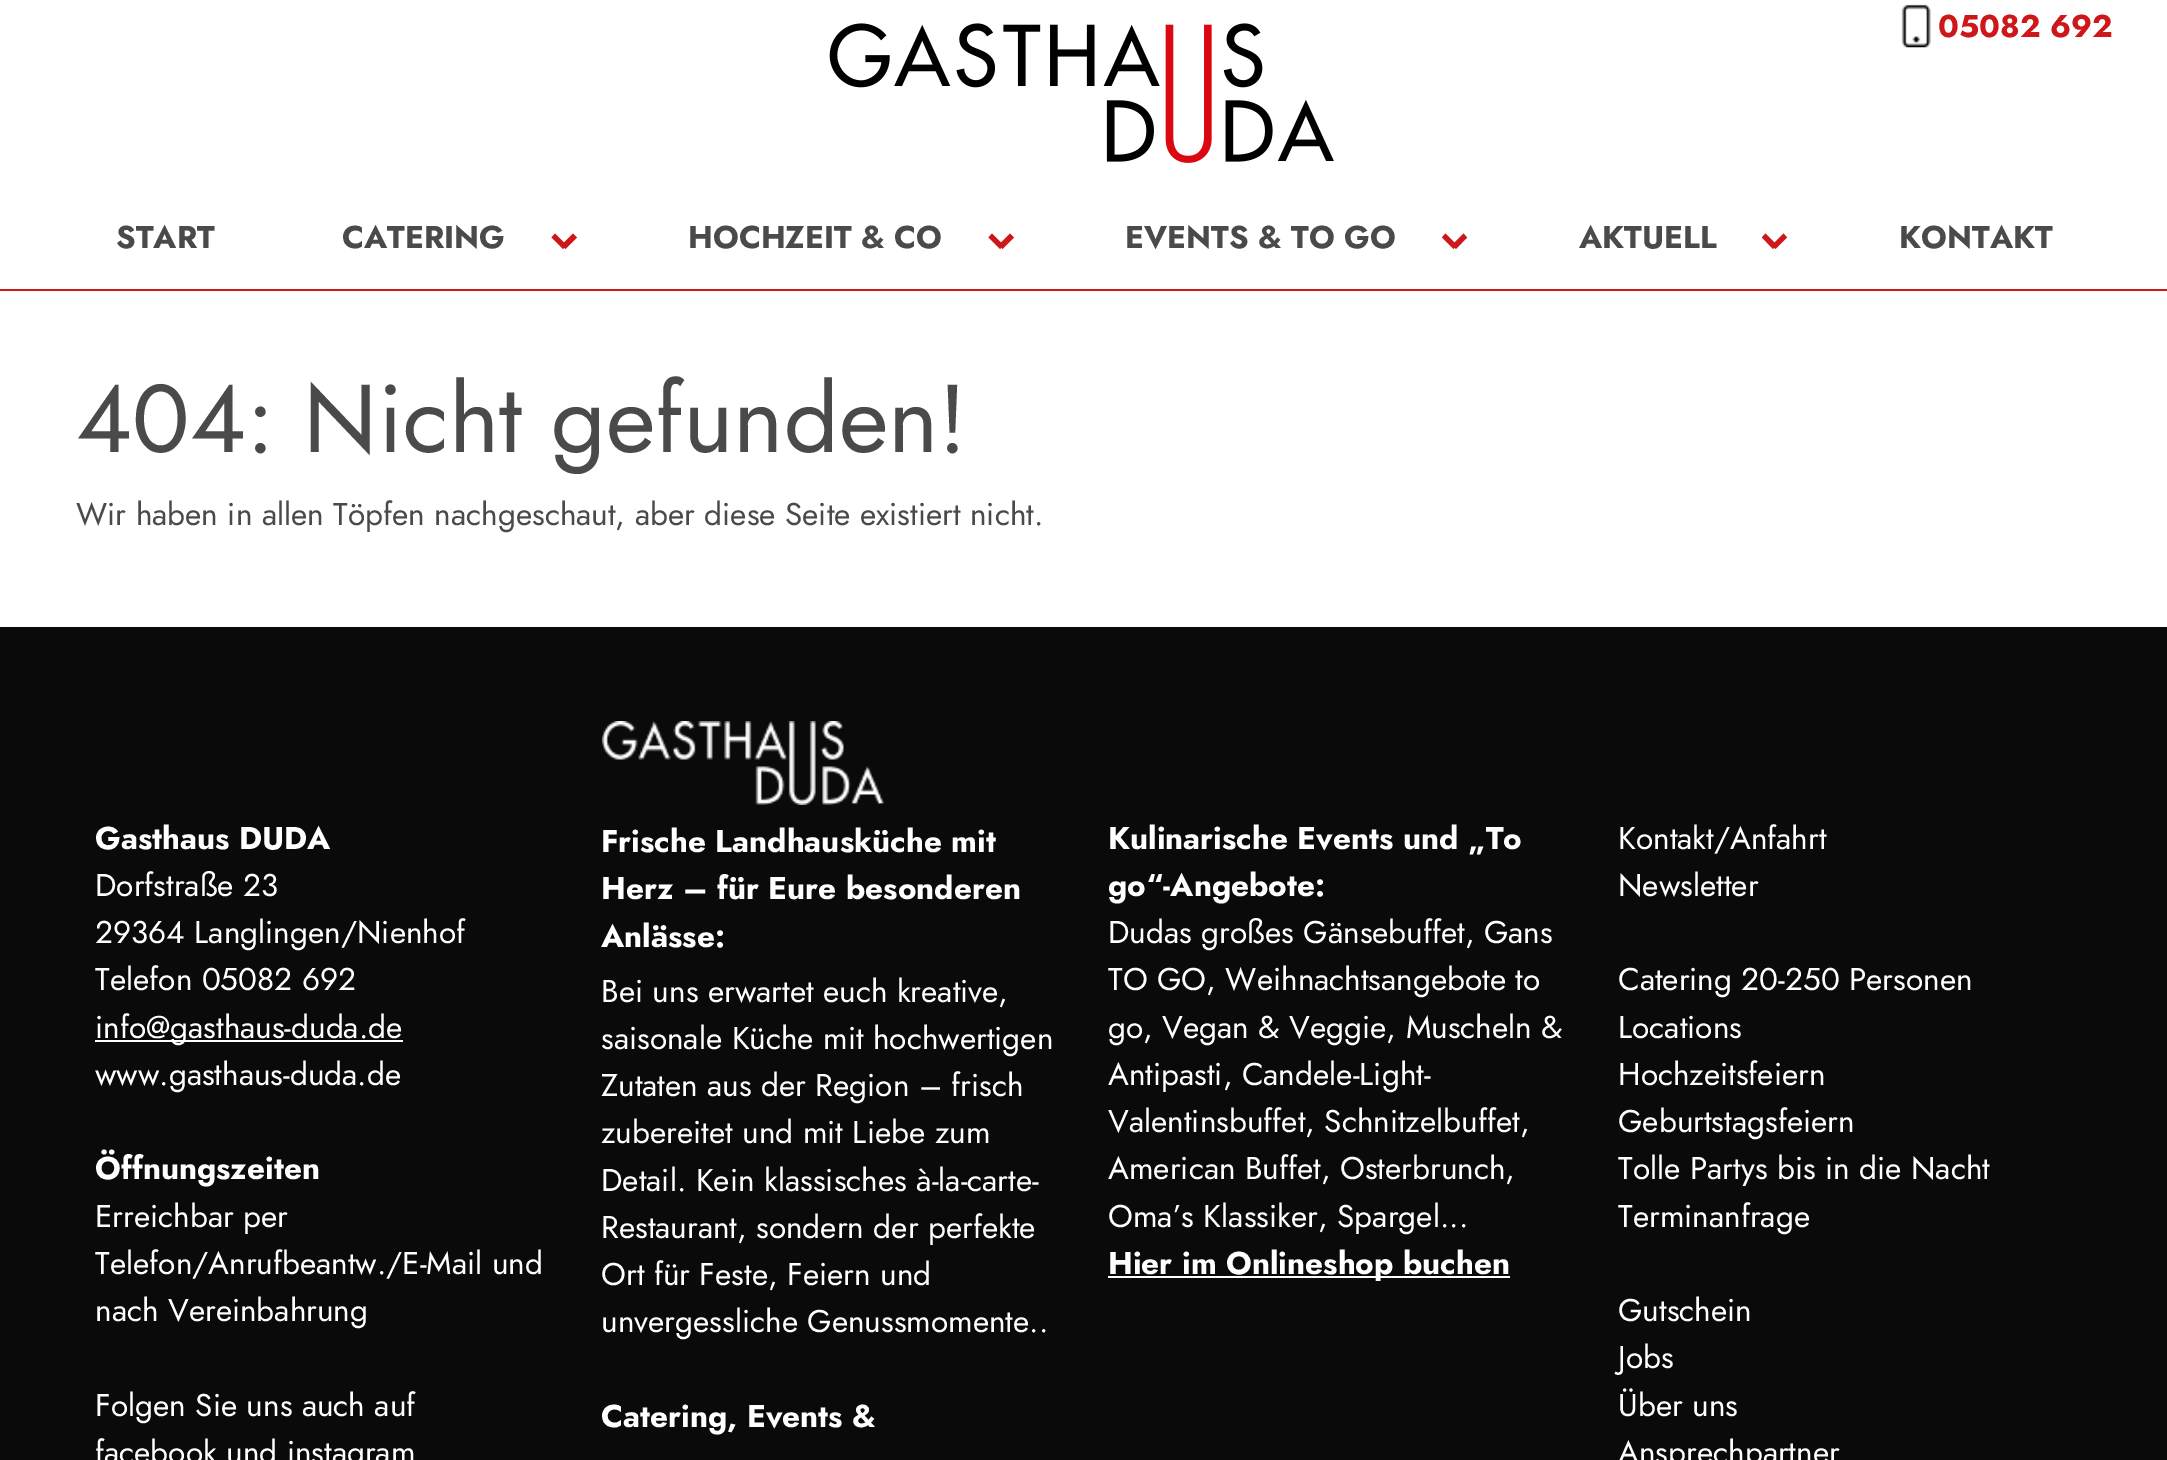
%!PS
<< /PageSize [2167 1460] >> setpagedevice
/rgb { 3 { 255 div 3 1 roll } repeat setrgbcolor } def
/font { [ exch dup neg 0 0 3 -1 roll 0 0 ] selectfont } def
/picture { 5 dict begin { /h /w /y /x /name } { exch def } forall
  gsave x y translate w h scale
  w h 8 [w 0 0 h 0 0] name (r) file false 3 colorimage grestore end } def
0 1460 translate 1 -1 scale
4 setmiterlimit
255 255 255 rgb
0 0 2167 1460 rectfill
205 23 25 rgb
0 289 2167 2 rectfill
(img/1.rgb) 1901 4 30 44 picture
(img/2.rgb) 829 23 505 140 picture
561.5 245 moveto 573 233.5 lineto 577 237.5 lineto 565.5 249 lineto closepath fill
551.5 237.5 moveto 555 233.5 lineto 566.5 245 lineto 563 249 lineto closepath fill
998.5 245 moveto 1010 233.5 lineto 1014 237.5 lineto 1002.5 249 lineto closepath fill
988.5 237.5 moveto 992 233.5 lineto 1003.5 245 lineto 1000 249 lineto closepath fill
1452 245 moveto 1463.5 233.5 lineto 1467 237.5 lineto 1456 249 lineto closepath fill
1442 237.5 moveto 1445.5 233.5 lineto 1457 245 lineto 1453.5 249 lineto closepath fill
1772 245 moveto 1783.5 233.5 lineto 1787 237.5 lineto 1775.5 249 lineto closepath fill
1762 237.5 moveto 1765.5 233.5 lineto 1777 245 lineto 1773 249 lineto closepath fill
10 10 10 rgb
0 627 2167 833 rectfill
255 255 255 rgb
95 1040 308 2 rectfill
(img/3.rgb) 602 721 282 84 picture
1108 1276 402 2 rectfill
/Jost-Bold 31.5 font
205 23 25 rgb
1938 37 moveto (05082 692) show
74 74 74 rgb
[
  [(START) 116 248]
  [(CATERING) 342 248]
  [(HOCHZEIT & CO) 688 248]
  [(EVENTS & TO GO) 1125 248]
  [(AKTUELL) 1579 248]
  [(KONTAKT) 1899 248]
] { aload pop moveto show } forall
/Jost-Regular 96.1 font
76 452 moveto (404: Nicht gefunden!) show
/Jost-Regular 31.5 font
76 525 moveto (Wir haben in allen Töpfen nachgeschaut, aber diese Seite existiert nicht.) show
/Jost-Bold 31.5 font
255 255 255 rgb
95 849 moveto (Gasthaus DUDA) show
/Jost-Regular 31.5 font
[
  [(Dorfstraße 23) 95 896]
  [(29364 Langlingen/Nienhof) 95 943]
  [(Telefon 05082 692) 95 990]
  [(info@gasthaus-duda.de) 95 1038]
  [(www.gasthaus-duda.de) 95 1085]
] { aload pop moveto show } forall
/Jost-Bold 31.5 font
95 1179 moveto (Öffnungszeiten) show
/Jost-Regular 31.5 font
[
  [(Erreichbar per) 95 1227]
  [(Telefon/Anrufbeantw./E-Mail und) 95 1274]
  [(nach Vereinbahrung) 95 1321]
  [(Folgen Sie uns auch auf) 95 1416]
  [(facebook und instagram) 95 1463]
] { aload pop moveto show } forall
/Jost-Bold 31.5 font
[
  [(Frische Landhausküche mit) 601 852]
  [(Herz – für Eure besonderen) 601 899]
  [(Anlässe:) 601 947]
] { aload pop moveto show } forall
/Jost-Regular 31.5 font
[
  [(Bei uns erwartet euch kreative,) 601 1002]
  [(saisonale Küche mit hochwertigen) 601 1049]
  [(Zutaten aus der Region – frisch) 601 1096]
  [(zubereitet und mit Liebe zum) 601 1143]
  [(Detail. Kein klassisches à-la-carte-) 601 1191]
  [(Restaurant, sondern der perfekte) 601 1238]
  [(Ort für Feste, Feiern und) 601 1285]
  [(unvergessliche Genussmomente..) 601 1332]
] { aload pop moveto show } forall
/Jost-Bold 31.5 font
[
  [(Catering, Events &) 601 1427]
  [(Kulinarische Events und „To) 1108 849]
  [(go“-Angebote:) 1108 896]
] { aload pop moveto show } forall
/Jost-Regular 31.5 font
[
  [(Dudas großes Gänsebuffet, Gans) 1108 943]
  [(TO GO, Weihnachtsangebote to) 1108 990]
  [(go, Vegan & Veggie, Muscheln &) 1108 1038]
  [(Antipasti, Candele-Light-) 1108 1085]
  [(Valentinsbuffet, Schnitzelbuffet,) 1108 1132]
  [(American Buffet, Osterbrunch,) 1108 1179]
  [(Oma’s Klassiker, Spargel...) 1108 1227]
] { aload pop moveto show } forall
/Jost-Bold 31.5 font
1108 1274 moveto (Hier im Onlineshop buchen) show
/Jost-Regular 31.5 font
[
  [(Kontakt/Anfahrt) 1618 849]
  [(Newsletter) 1618 896]
  [(Catering 20-250 Personen) 1618 990]
  [(Locations) 1618 1038]
  [(Hochzeitsfeiern) 1618 1085]
  [(Geburtstagsfeiern) 1618 1132]
  [(Tolle Partys bis in die Nacht) 1618 1179]
  [(Terminanfrage) 1618 1227]
  [(Gutschein) 1618 1321]
  [(Jobs) 1618 1368]
  [(Über uns) 1618 1416]
  [(Ansprechpartner) 1618 1463]
] { aload pop moveto show } forall
showpage
